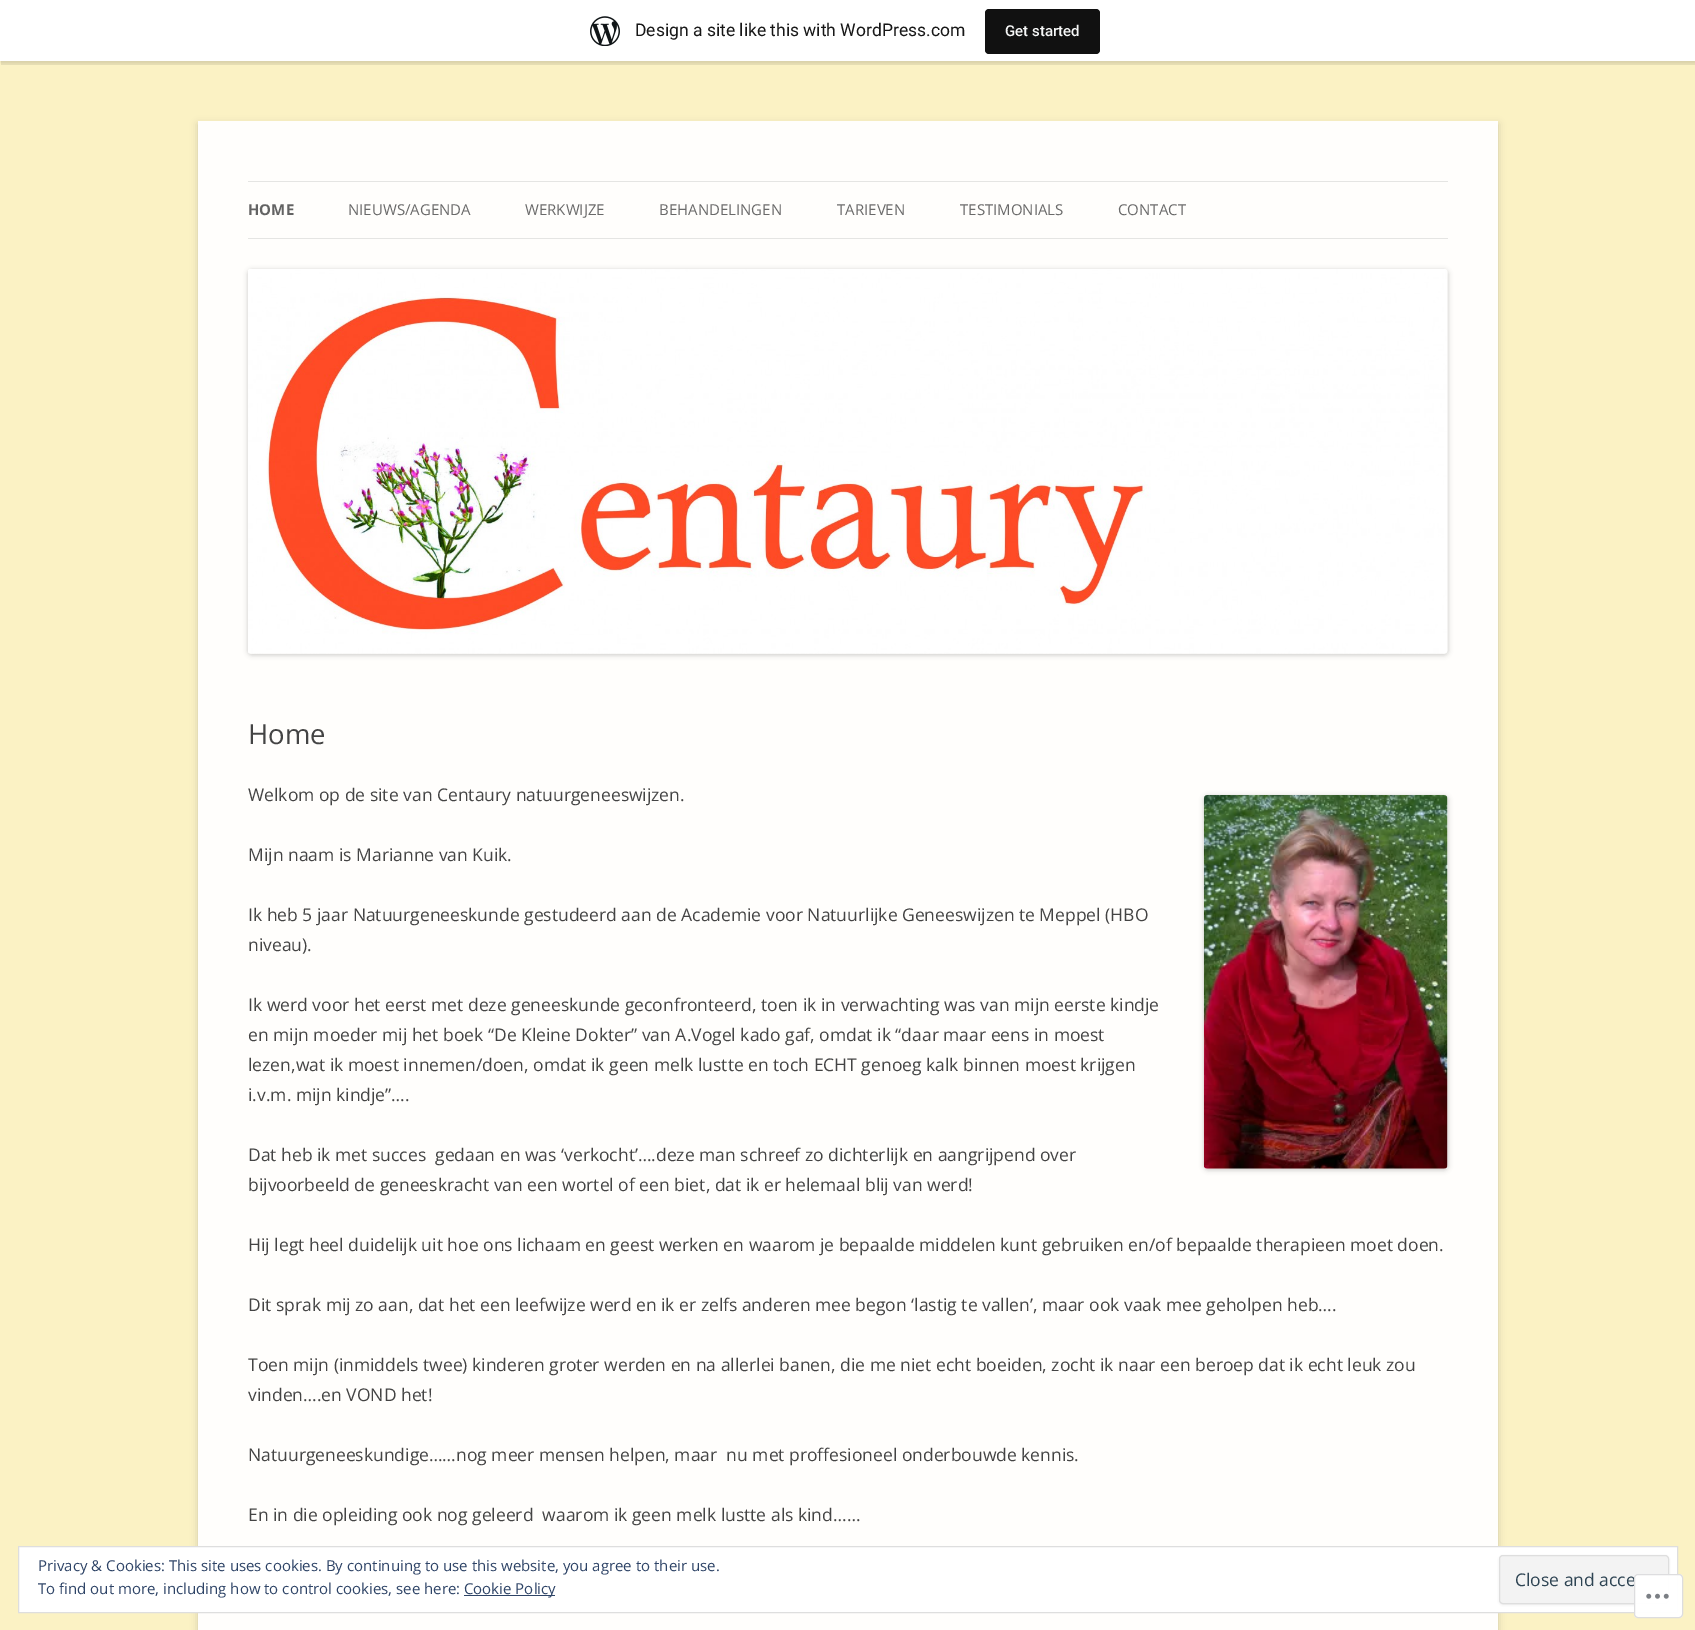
%!PS
<< /PageSize [1695 1630] /PageUsesTransparency true >> setpagedevice
/rgb { 3 { 255 div 3 1 roll } repeat setrgbcolor } def
/font { [ exch dup neg 0 0 3 -1 roll 0 0 ] selectfont } def
/alpha { dup .setfillconstantalpha .setstrokeconstantalpha } def
/roundrect { 5 dict begin { /r /h /w /y /x } { exch def } forall
  x r add y moveto x w add y 2 copy h add r arct x w add y h add x 1 index r arct
  x y h add x y r arct x y 2 copy exch w add exch r arct closepath end } def
/shadow { 12 dict begin { /a /b /q /h /w /y /x } { exch def } forall gsave /was 0 def
  9 -2 -9 { dup b mul 4 div /e exch def 1 sub .425 mul 2.718 exch exp 1 add a .99 .min exch div /now exch def
    1 1 now sub 1 was sub div sub alpha /was now def
    w h .min e 2 mul add 0 gt { x e sub y e sub w e 2 mul add h e 2 mul add
      q e add b .6 mul add w h .min 2 div e add .min 0 .max roundrect fill } if } for grestore end } def
/picture { 5 dict begin { /h /w /y /x /name } { exch def } forall
  gsave x y translate w h scale
  w h 8 [w 0 0 h 0 0] name (r) file false 3 colorimage grestore end } def
0 .pushpdf14devicefilter
0 1630 translate 1 -1 scale
4 setmiterlimit
251 242 196 rgb
0 0 1695 1630 rectfill
0 0 0 rgb
0 1 1695 62 0 1 0.05 shadow
0.08 alpha
1 61 moveto 1 65 lineto 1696 65 lineto 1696 4 lineto 1695 4 lineto 1695 61 lineto closepath fill
1 alpha
255 255 255 rgb
0 0 1695 61 rectfill
(img/1.rgb) 590 16 30 30 picture
17 17 17 rgb
985 9 115 45 4 roundrect fill
gsave
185 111 moveto 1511 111 lineto 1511 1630 lineto 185 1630 lineto closepath 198 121 moveto 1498 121 lineto 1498 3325 lineto 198 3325 lineto closepath eoclip newpath
100 100 100 rgb
198 124 1300 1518 0 4 0.3 shadow
grestore
0.95 alpha
[
  [198 121 1300 1509 255 255 255]
] { aload pop rgb rectfill } forall
1 alpha
[
  [248 181 1200 1 229 229 227]
  [248 238 1200 1 229 229 227]
] { aload pop rgb rectfill } forall
0 0 0 rgb
248 270 1200 385 4 2.5 0.2 shadow
(img/2.rgb) 248 269 1200 385 picture
1204 796 244 374 4 2.5 0.2 shadow
(img/3.rgb) 1203 795 245 374 picture
255 255 255 rgb
18.5 1546.5 moveto 1677.5 1546.5 lineto 1677.5 1612.5 lineto 18.5 1612.5 lineto closepath gsave fill grestore
222 222 222 rgb
stroke
64 64 64 rgb
1499 1556 170 49 4 1 0.1 shadow
243 243 243 rgb
1499.5 1555.5 169 48 3.5 roundrect gsave fill grestore
222 222 222 rgb
stroke
46 68 103 rgb
464 1595 91 1 rectfill
/Roboto-Regular 17.5 font
23 23 23 rgb
635 36 moveto (Design a site like this with WordPress.com) show
/Roboto-Medium 15 font
246 247 247 rgb
1005 36 moveto (Get started) show
/OpenSans-Bold 15 font
99 99 99 rgb
248 215 moveto (HOME) show
/OpenSans-Regular 15 font
106 106 106 rgb
[
  [(NIEUWS/AGENDA) 348 215]
  [(WERKWIJZE) 525 215]
  [(BEHANDELINGEN) 659 215]
  [(TARIEVEN) 837 215]
  [(TESTIMONIALS) 960 215]
  [(CONTACT) 1118 215]
] { aload pop moveto show } forall
/OpenSans-Regular 27.5 font
68 68 68 rgb
248 744 moveto (Home) show
/OpenSans-Regular 17.5 font
[
  [(Welkom op de site van Centaury natuurgeneeswijzen.) 248 801]
  [(Mijn naam is Marianne van Kuik.) 248 861]
  [(Ik heb 5 jaar Natuurgeneeskunde gestudeerd aan de Academie voor Natuurlijke Geneeswijzen te Meppel \(HBO) 248 921]
  [(niveau\).) 248 951]
  [(Ik werd voor het eerst met deze geneeskunde geconfronteerd, toen ik in verwachting was van mijn eerste kindje) 248 1011]
  [(en mijn moeder mij het boek “De Kleine Dokter” van A.Vogel kado gaf, omdat ik “daar maar eens in moest) 248 1041]
  [(lezen,wat ik moest innemen/doen, omdat ik geen melk lustte en toch ECHT genoeg kalk binnen moest krijgen) 248 1071]
  [(i.v.m. mijn kindje”….) 248 1101]
  [(Dat heb ik met succes  gedaan en was ‘verkocht’….deze man schreef zo dichterlijk en aangrijpend over) 248 1161]
  [(bijvoorbeeld de geneeskracht van een wortel of een biet, dat ik er helemaal blij van werd!) 248 1191]
  [(Hij legt heel duidelijk uit hoe ons lichaam en geest werken en waarom je bepaalde middelen kunt gebruiken en/of bepaalde therapieen moet doen.) 248 1251]
  [(Dit sprak mij zo aan, dat het een leefwijze werd en ik er zelfs anderen mee begon ‘lastig te vallen’, maar ook vaak mee geholpen heb….) 248 1311]
  [(Toen mijn \(inmiddels twee\) kinderen groter werden en na allerlei banen, die me niet echt boeiden, zocht ik naar een beroep dat ik echt leuk zou) 248 1371]
  [(vinden….en VOND het!) 248 1401]
  [(Natuurgeneeskundige……nog meer mensen helpen, maar  nu met proffesioneel onderbouwde kennis.) 248 1461]
  [(En in die opleiding ook nog geleerd  waarom ik geen melk lustte als kind……) 248 1521]
] { aload pop moveto show } forall
/OpenSans-Regular 15 font
46 68 103 rgb
38 1571 moveto (Privacy & Cookies: This site uses cookies. By continuing to use this website, you agree to their use.) show
/OpenSans-Regular 17.5 font
46 68 83 rgb
1515 1586 moveto (Close and acce) show
/OpenSans-Regular 15 font
46 68 103 rgb
38 1594 moveto (To find out more, including how to control cookies, see here:) show
464 1594 moveto (Cookie Policy) show
0.98 alpha
255 255 255 rgb
1634 1574 49 44 4 roundrect fill
220 220 222 rgb
1634.5 1574.5 48 43 3.5 roundrect stroke
1 alpha
(img/4.rgb) 1646 1593 23 6 picture
.poppdf14devicefilter showpage
